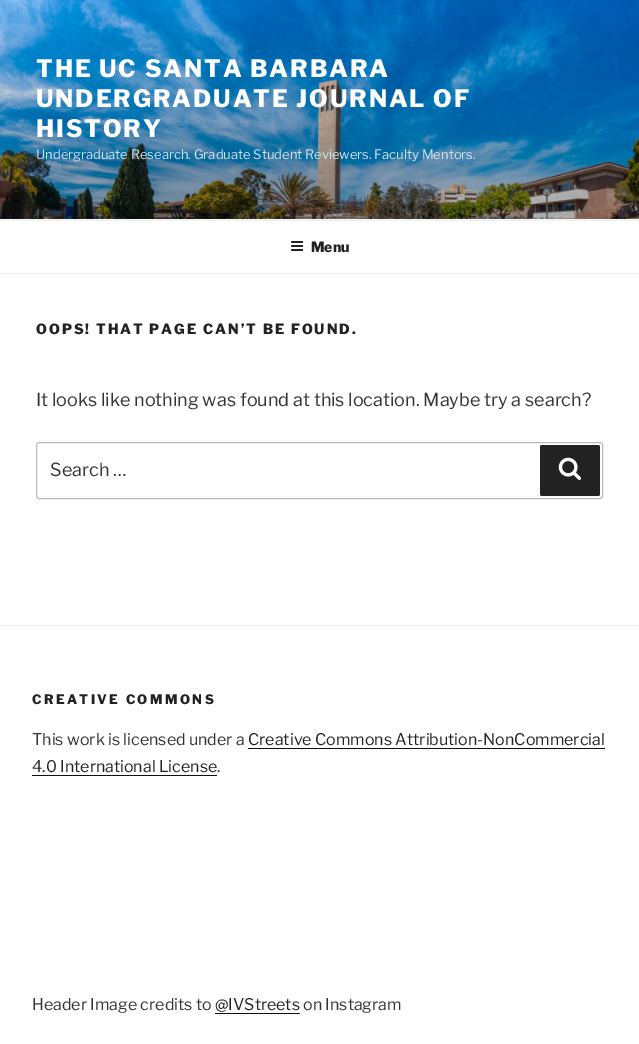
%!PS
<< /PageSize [639 1044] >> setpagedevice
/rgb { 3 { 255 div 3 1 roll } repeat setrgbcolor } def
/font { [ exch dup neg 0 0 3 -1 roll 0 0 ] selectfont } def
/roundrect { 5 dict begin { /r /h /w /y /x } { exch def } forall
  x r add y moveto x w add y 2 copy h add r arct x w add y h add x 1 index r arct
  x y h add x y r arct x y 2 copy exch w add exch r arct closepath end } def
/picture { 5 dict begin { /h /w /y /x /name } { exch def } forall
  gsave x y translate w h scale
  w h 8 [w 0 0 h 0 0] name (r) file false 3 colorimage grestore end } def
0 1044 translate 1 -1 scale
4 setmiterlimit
255 255 255 rgb
0 0 639 1044 rectfill
250 250 250 rgb
0 219 639 1 rectfill
(img/1.rgb) 0 0 639 219 picture
238 238 238 rgb
0 220 639 1 rectfill
0 273 639 1 rectfill
(img/2.rgb) 291 241 13 10 picture
187 187 187 rgb
36.5 442.5 566 56 2.5 roundrect stroke
34 34 34 rgb
540 445 60 51 2 roundrect fill
(img/3.rgb) 558 457 23 23 picture
[
  [0 625 639 1 238 238 238]
  [248 748 357 1 15 15 15]
  [32 775 185 1 15 15 15]
  [215 1013 85 1 15 15 15]
] { aload pop rgb rectfill } forall
/LibreFranklin-Thin 24 font
255 255 255 rgb
36 77 moveto 1.9 0 (THE UC SANTA BARBARA) ashow
36 107 moveto 1.9 0 (UNDERGRADUATE JOURNAL OF) ashow
36 137 moveto 1.9 0 (HISTORY) ashow
/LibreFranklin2-Thin 13 font
211 226 235 rgb
36 159 moveto (Undergraduate Research. Graduate Student Reviewers. Faculty Mentors.) show
/LibreFranklin-Thin 14 font
34 34 34 rgb
311 252 moveto (Menu) show
36 334 moveto 1.95 0 (OOPS! THAT PAGE CAN’T BE FOUND.) ashow
/LibreFranklin2-Thin 18 font
51 51 51 rgb
36 406 moveto (It looks like nothing was found at this location. Maybe try a search?) show
50 476 moveto (Search …) show
/LibreFranklin-Thin 13 font
34 34 34 rgb
32 704 moveto 2.4 0 (CREATIVE COMMONS) ashow
/LibreFranklin2-Thin 16 font
51 51 51 rgb
32 745 moveto (This work is licensed under a) show
34 34 34 rgb
248 745 moveto (Creative Commons Attribution-NonCommercial) show
32 772 moveto (4.0 International License) show
51 51 51 rgb
217 772 moveto (.) show
32 1010 moveto (Header Image credits to) show
34 34 34 rgb
215 1010 moveto (@IVStreets) show
51 51 51 rgb
303 1010 moveto (on Instagram) show
showpage
